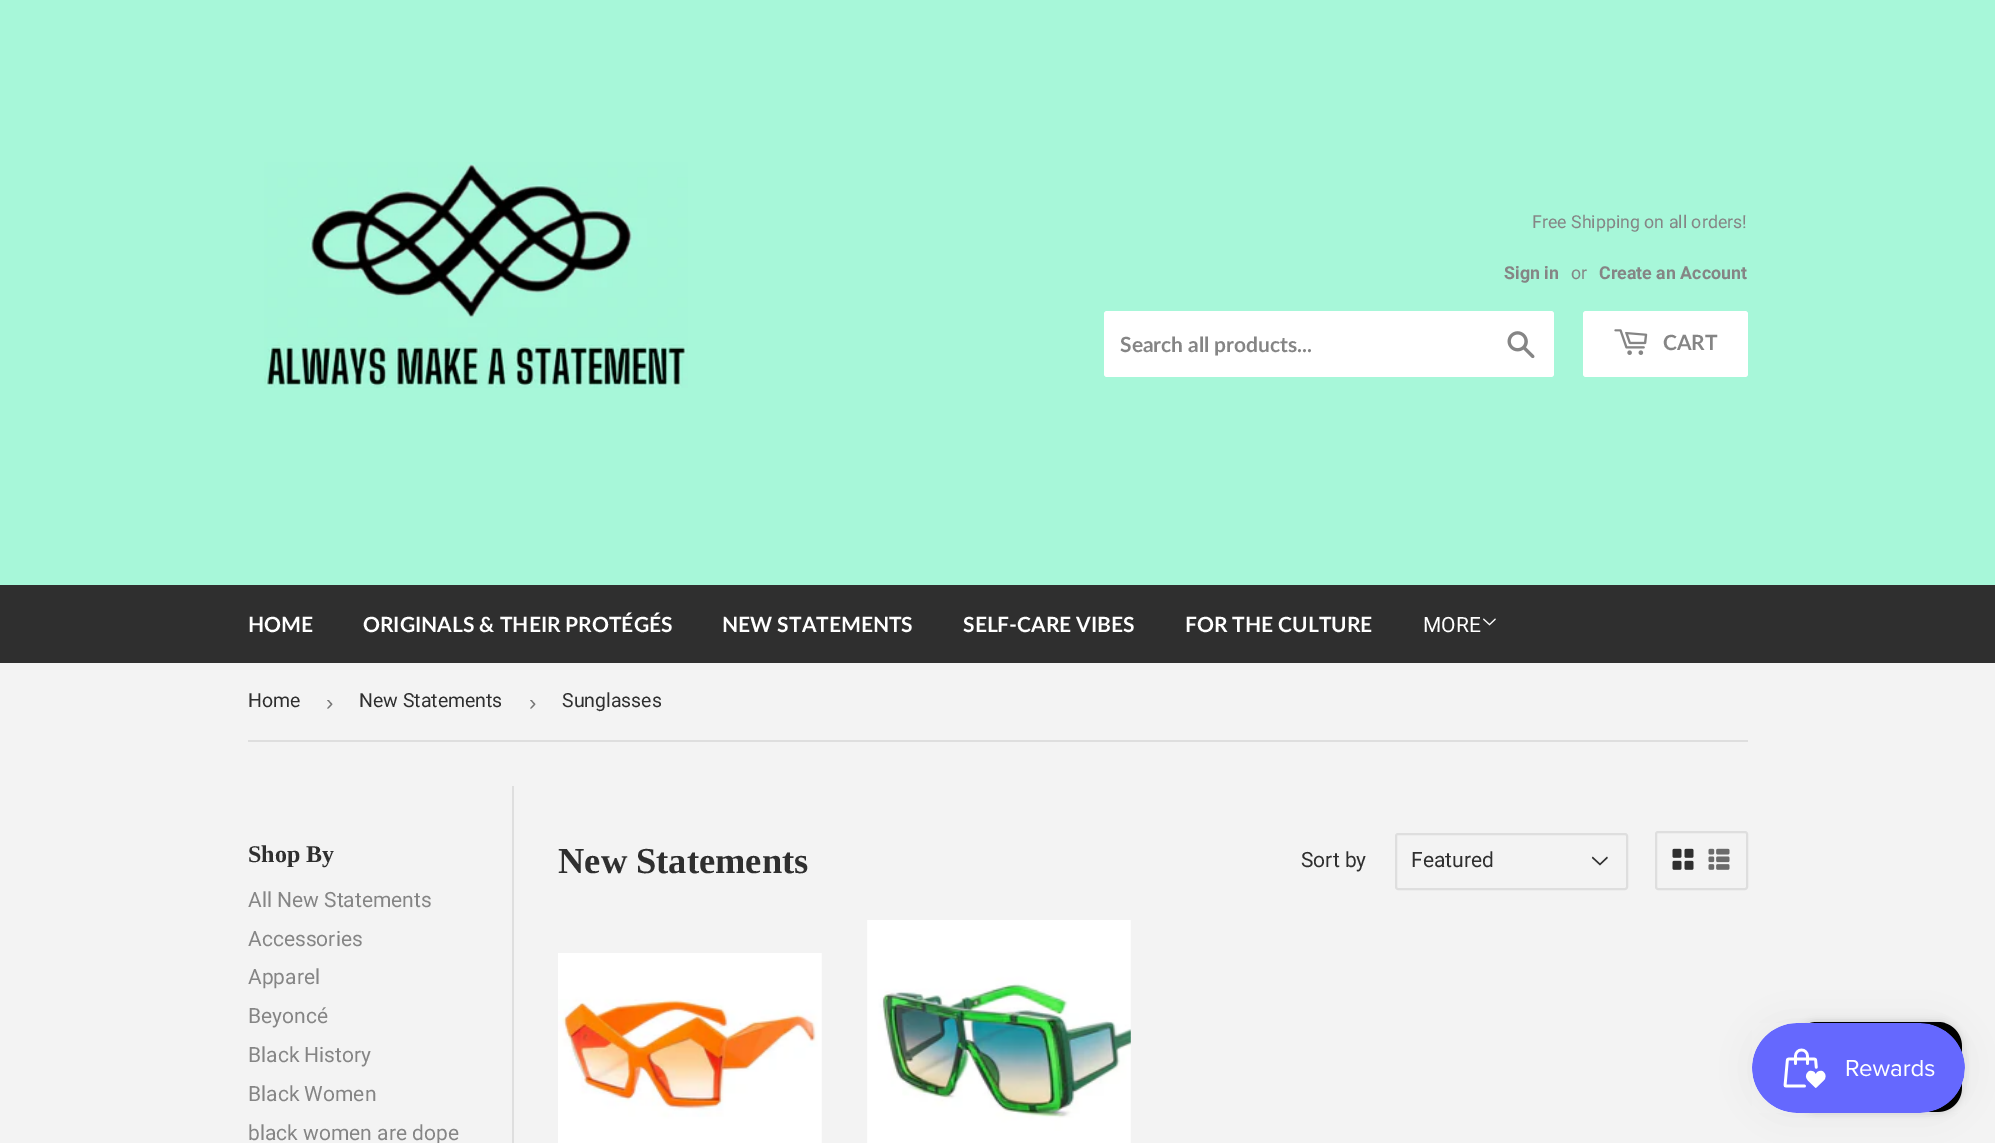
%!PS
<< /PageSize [1995 1143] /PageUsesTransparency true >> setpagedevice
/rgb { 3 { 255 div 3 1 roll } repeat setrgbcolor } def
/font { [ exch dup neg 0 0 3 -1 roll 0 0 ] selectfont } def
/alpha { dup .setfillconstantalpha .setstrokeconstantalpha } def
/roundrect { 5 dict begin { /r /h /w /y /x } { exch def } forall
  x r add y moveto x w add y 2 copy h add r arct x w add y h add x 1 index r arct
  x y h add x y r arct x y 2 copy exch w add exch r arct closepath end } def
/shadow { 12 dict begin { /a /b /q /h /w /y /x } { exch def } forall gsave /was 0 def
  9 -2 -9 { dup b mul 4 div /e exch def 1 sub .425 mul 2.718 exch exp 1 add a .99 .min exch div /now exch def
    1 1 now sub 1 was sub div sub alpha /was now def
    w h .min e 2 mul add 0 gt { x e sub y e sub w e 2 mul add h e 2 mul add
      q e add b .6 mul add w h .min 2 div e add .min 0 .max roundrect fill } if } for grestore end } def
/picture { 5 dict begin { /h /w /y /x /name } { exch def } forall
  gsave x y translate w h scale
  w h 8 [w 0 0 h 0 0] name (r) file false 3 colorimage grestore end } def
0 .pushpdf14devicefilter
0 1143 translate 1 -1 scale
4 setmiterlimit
243 243 243 rgb
0 0 1995 1143 rectfill
167 247 217 rgb
0 0 1995 585 rectfill
(img/1.rgb) 264 162 424 226 picture
255 255 255 rgb
1104 311 450 66 3 roundrect fill
(img/2.rgb) 1507 331 28 28 picture
1583 311 165 66 3 roundrect fill
(img/3.rgb) 1614 329 34 26 picture
47 47 47 rgb
0 585 1995 78 rectfill
(img/4.rgb) 1483 618 13 8 picture
222 222 222 rgb
248 740 1500 2 rectfill
512 786 2 357 rectfill
(img/5.rgb) 1591 856 17 10 picture
2 setlinewidth
1396 834 231 55 2 roundrect stroke
1656 832 91 57 2 roundrect stroke
(img/6.rgb) 1672 848 22 22 picture
(img/7.rgb) 1708 848 22 22 picture
(img/8.rgb) 558 953 264 190 picture
(img/9.rgb) 867 920 264 223 picture
0 0 0 rgb
1793 1022 169 90 24 4 0.15 shadow
1793 1022 169 90 24 roundrect fill
1752 1023 213 90 45 19 0.05 shadow
(img/10.rgb) 1752 1023 213 90 picture
/Roboto-Regular 17.8 font
133 133 133 rgb
1532 228 moveto (Free Shipping on all orders!) show
/Roboto-Bold 17.8 font
1504 279 moveto (Sign in) show
/Roboto-Regular 17.8 font
1571 279 moveto (or) show
/Roboto-Bold 17.8 font
1599 279 moveto (Create an Account) show
/Lato-Bold 21 font
1120 352 moveto (Search all products...) show
1663 350 moveto (CART) show
255 255 255 rgb
[
  [(HOME) 248 632]
  [(ORIGINALS & THEIR PROTÉGÉS) 363 632]
  [(NEW STATEMENTS) 722 632]
  [(SELF-CARE VIBES) 963 632]
  [(FOR THE CULTURE) 1185 632]
] { aload pop moveto show } forall
/Roboto-Regular 21 font
1423 632 moveto (MORE) show
/Roboto-Regular 19.5 font
47 47 47 rgb
248 707 moveto (Home) show
/LiberationSans-Regular 22 font
118 118 118 rgb
326 710 moveto (›) show
/Roboto-Regular 19.5 font
47 47 47 rgb
359 707 moveto (New Statements) show
/LiberationSans-Regular 22 font
118 118 118 rgb
529 710 moveto (›) show
/Roboto-Regular 19.5 font
47 47 47 rgb
562 707 moveto (Sunglasses) show
/LiberationSerif-Bold 24 font
248 862 moveto (Shop By) show
/Roboto-Regular 21 font
133 133 133 rgb
[
  [(All New Statements) 248 907]
  [(Accessories) 248 946]
  [(Apparel) 248 984]
  [(Beyoncé) 248 1023]
  [(Black History) 248 1062]
  [(Black Women) 248 1101]
  [(black women are dope) 248 1140]
] { aload pop moveto show } forall
/LiberationSerif-Bold 36.5 font
47 47 47 rgb
558 873 moveto (New Statements) show
/Roboto-Regular 21 font
1301 867 moveto (Sort by) show
1411 867 moveto (Featured) show
.poppdf14devicefilter showpage
